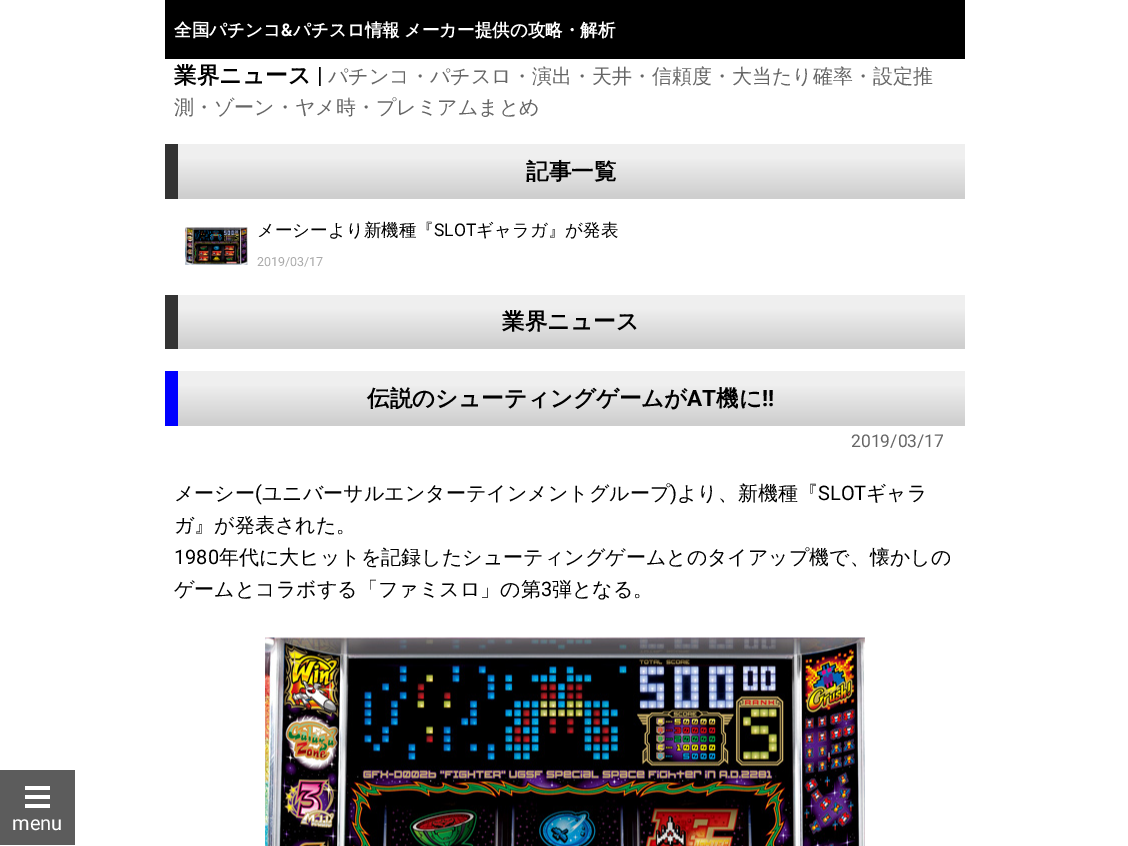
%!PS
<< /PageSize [1128 846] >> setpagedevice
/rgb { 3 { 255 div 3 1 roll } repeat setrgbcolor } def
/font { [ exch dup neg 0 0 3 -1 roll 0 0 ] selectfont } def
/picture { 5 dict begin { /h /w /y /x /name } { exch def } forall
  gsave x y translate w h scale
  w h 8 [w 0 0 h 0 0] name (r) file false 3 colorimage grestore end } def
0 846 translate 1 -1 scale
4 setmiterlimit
255 255 255 rgb
0 0 1128 846 rectfill
0 0 0 rgb
165 0 800 59 rectfill
gsave 178 144 moveto 965 144 lineto 965 199 lineto 178 199 lineto closepath clip newpath
<< /ShadingType 2 /ColorSpace /DeviceRGB /Coords [571 144 571 199] /Extend [true true] /Function << /FunctionType 3 /Domain [0 1] /Functions [<< /FunctionType 2 /Domain [0 1] /C0 [0.937 0.937 0.937] /C1 [0.937 0.937 0.937] /N 1 >> << /FunctionType 2 /Domain [0 1] /C0 [0.937 0.937 0.937] /C1 [0.808 0.808 0.808] /N 1 >> << /FunctionType 2 /Domain [0 1] /C0 [0.808 0.808 0.808] /C1 [0.808 0.808 0.808] /N 1 >>] /Bounds [0.26 0.95] /Encode [0 1 0 1 0 1] >> >> shfill grestore
51 51 51 rgb
165 144 13 55 rectfill
(img/1.rgb) 185 227 63 38 picture
gsave 178 295 moveto 965 295 lineto 965 349 lineto 178 349 lineto closepath clip newpath
<< /ShadingType 2 /ColorSpace /DeviceRGB /Coords [571 295 571 349] /Extend [true true] /Function << /FunctionType 3 /Domain [0 1] /Functions [<< /FunctionType 2 /Domain [0 1] /C0 [0.937 0.937 0.937] /C1 [0.937 0.937 0.937] /N 1 >> << /FunctionType 2 /Domain [0 1] /C0 [0.937 0.937 0.937] /C1 [0.808 0.808 0.808] /N 1 >> << /FunctionType 2 /Domain [0 1] /C0 [0.808 0.808 0.808] /C1 [0.808 0.808 0.808] /N 1 >>] /Bounds [0.26 0.95] /Encode [0 1 0 1 0 1] >> >> shfill grestore
165 295 13 54 rectfill
gsave 178 371 moveto 965 371 lineto 965 426 lineto 178 426 lineto closepath clip newpath
<< /ShadingType 2 /ColorSpace /DeviceRGB /Coords [571 371 571 426] /Extend [true true] /Function << /FunctionType 3 /Domain [0 1] /Functions [<< /FunctionType 2 /Domain [0 1] /C0 [0.937 0.937 0.937] /C1 [0.937 0.937 0.937] /N 1 >> << /FunctionType 2 /Domain [0 1] /C0 [0.937 0.937 0.937] /C1 [0.808 0.808 0.808] /N 1 >> << /FunctionType 2 /Domain [0 1] /C0 [0.808 0.808 0.808] /C1 [0.808 0.808 0.808] /N 1 >>] /Bounds [0.26 0.95] /Encode [0 1 0 1 0 1] >> >> shfill grestore
0 0 255 rgb
165 371 13 55 rectfill
(img/2.rgb) 265 637 600 209 picture
[
  [0 770 75 75 92 92 92]
  [25 786 25 4 255 255 255]
  [25 795 25 4 255 255 255]
  [25 804 25 4 255 255 255]
] { aload pop rgb rectfill } forall
/WenQuanYiZenHei-Bold 17.5 font
174 36 moveto (全国パチンコ) show
/Roboto-Bold 17.5 font
281 36 moveto (&) show
/WenQuanYiZenHei-Bold 17.5 font
293 36 moveto -1 0 32 (パチスロ情報 メーカー提供の攻略・解析) widthshow
/WenQuanYiZenHei-Bold 22.5 font
0 0 0 rgb
174 83 moveto (業界ニュース) show
/Roboto-Bold 22.5 font
317 83 moveto (|) show
/WenQuanYiZenHei-Medium 20 font
102 102 102 rgb
328 83 moveto (パチンコ・パチスロ・演出・天井・信頼度・大当たり確率・設定推) show
174 114 moveto (測・ゾーン・ヤメ時・プレミアムまとめ) show
/WenQuanYiZenHei-Bold 22.5 font
0 0 0 rgb
526 179 moveto (記事一覧) show
/WenQuanYiZenHei-Medium 17.5 font
257 236 moveto (メーシーより新機種『) show
/Roboto-Regular 17.5 font
434 236 moveto (SLOT) show
/WenQuanYiZenHei-Medium 17.5 font
476 236 moveto (ギャラガ』が発表) show
/Roboto-Regular 12.5 font
170 170 170 rgb
257 266 moveto (2019/03/17) show
/WenQuanYiZenHei-Bold 22.5 font
0 0 0 rgb
502 329 moveto (業界ニュース) show
367 406 moveto (伝説のシューティングゲームが) show
/Roboto-Bold 22.5 font
687 406 moveto (AT) show
/WenQuanYiZenHei-Bold 22.5 font
716 406 moveto (機に) show
/Roboto-Bold 22.5 font
762 406 moveto (!!) show
/Roboto-Regular 17.5 font
102 102 102 rgb
851 447 moveto (2019/03/17) show
/WenQuanYiZenHei-Medium 20 font
0 0 0 rgb
174 500 moveto (メーシー) show
/Roboto-Regular 20 font
255 500 moveto (\() show
/WenQuanYiZenHei-Medium 20 font
262 500 moveto (ユニバーサルエンターテインメントグループ) show
/Roboto-Regular 20 font
670 500 moveto (\)) show
/WenQuanYiZenHei-Medium 20 font
677 500 moveto (より、新機種『) show
/Roboto-Regular 20 font
818 500 moveto (SLOT) show
/WenQuanYiZenHei-Medium 20 font
866 500 moveto (ギャラ) show
174 532 moveto (ガ』が発表された。) show
/Roboto-Regular 20 font
174 564 moveto (1980) show
/WenQuanYiZenHei-Medium 20 font
219 564 moveto (年代に大ヒットを記録したシューティングゲームとのタイアップ機で、懐かしの) show
174 596 moveto (ゲームとコラボする「ファミスロ」の第) show
/Roboto-Regular 20 font
541 596 moveto (3) show
/WenQuanYiZenHei-Medium 20 font
552 596 moveto (弾となる。) show
/Roboto-Regular 20 font
255 255 255 rgb
12 830 moveto (menu) show
showpage
